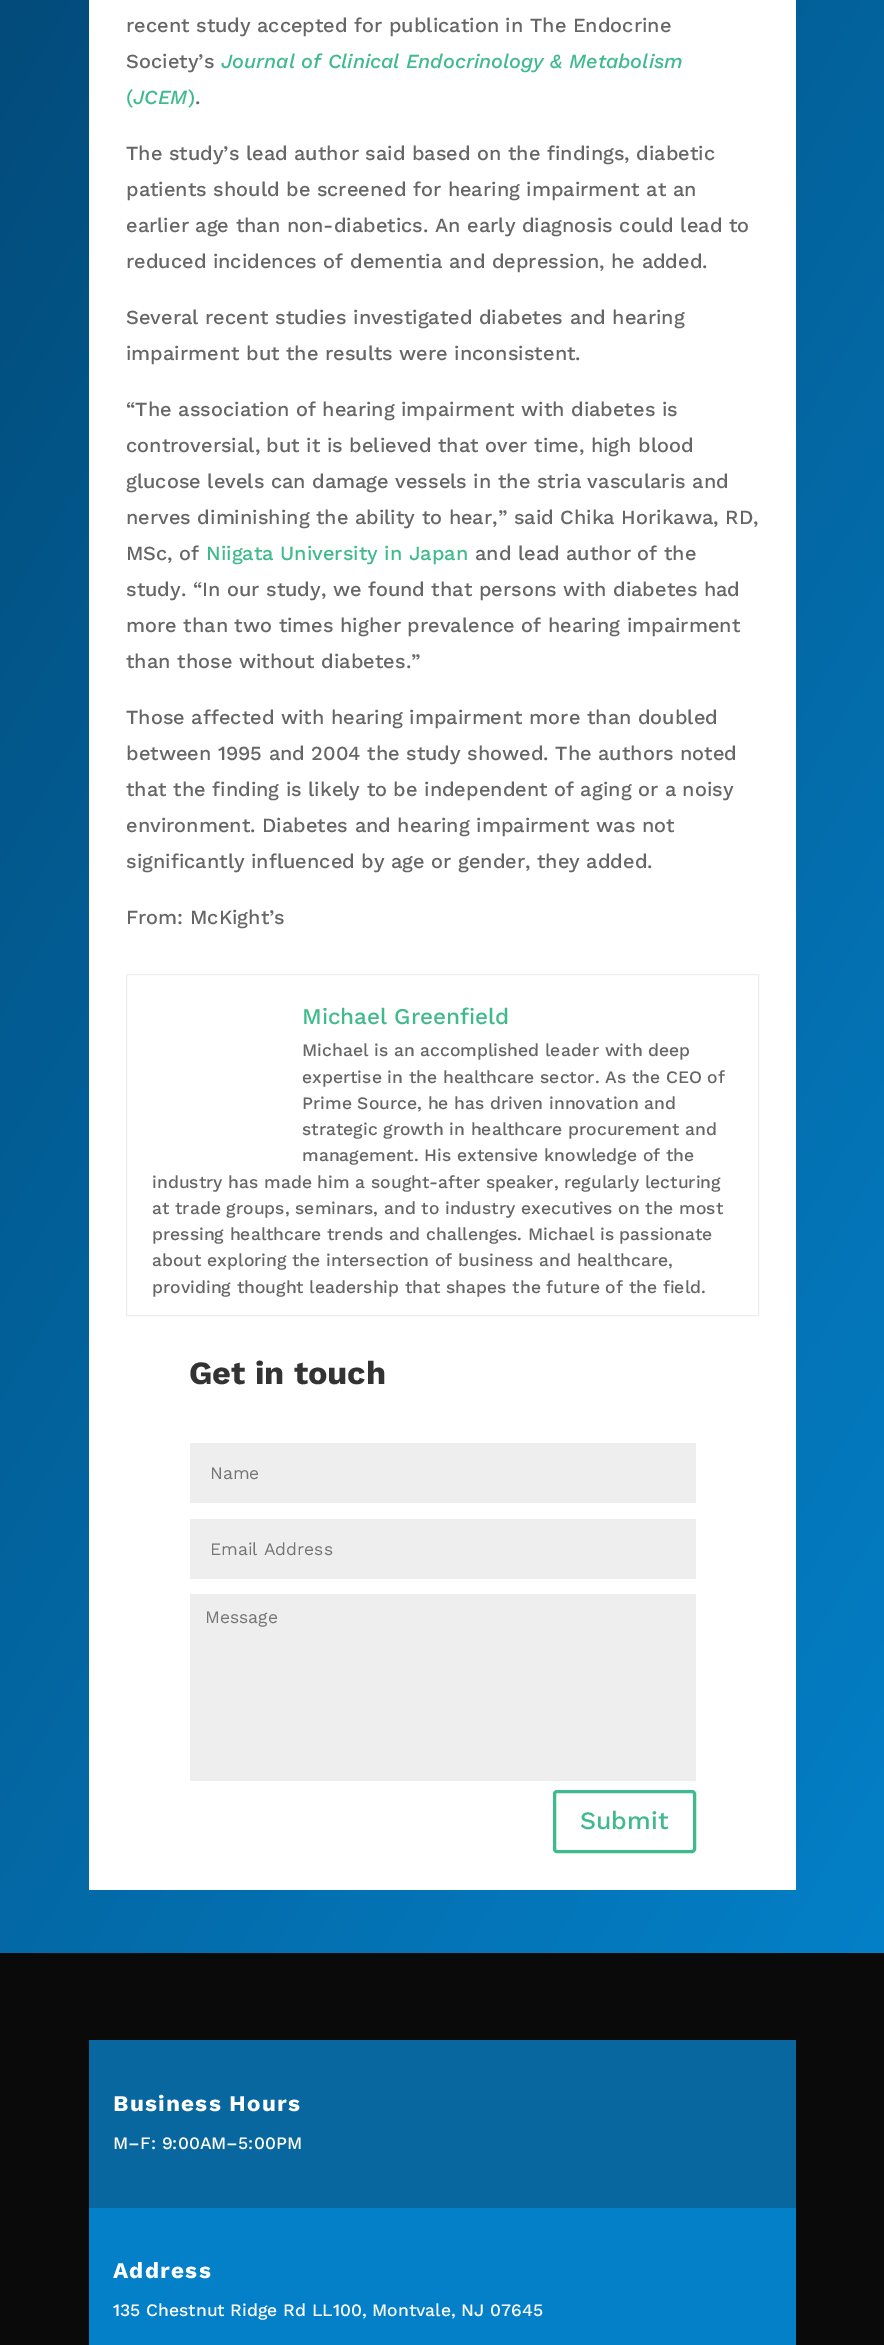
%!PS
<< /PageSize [884 2345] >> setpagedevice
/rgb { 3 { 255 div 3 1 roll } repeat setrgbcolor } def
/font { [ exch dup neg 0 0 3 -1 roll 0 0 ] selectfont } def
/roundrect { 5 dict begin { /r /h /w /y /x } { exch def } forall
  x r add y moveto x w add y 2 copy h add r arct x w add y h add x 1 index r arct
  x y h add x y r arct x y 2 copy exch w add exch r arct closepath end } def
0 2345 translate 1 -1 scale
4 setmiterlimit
255 255 255 rgb
0 0 884 2345 rectfill
gsave 0 0 moveto 884 0 lineto 884 1953 lineto 0 1953 lineto closepath clip newpath
<< /ShadingType 2 /ColorSpace /DeviceRGB /Coords [-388 320 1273 1280] /Extend [true true] /Function << /FunctionType 2 /Domain [0 1] /C0 [0.008 0.275 0.451] /C1 [0.012 0.502 0.784] /N 1 >> >> shfill grestore
89 0 707 1890 rectfill
238 238 238 rgb
126.5 974.5 632 341 rectstroke
[
  [190 1443 506 60 238 238 238]
  [190 1519 506 60 238 238 238]
  [190 1594 506 187 238 238 238]
] { aload pop rgb rectfill } forall
63 186 141 rgb
3 setlinewidth
554.5 1791.5 140 60 2.5 roundrect stroke
[
  [0 1953 884 392 10 10 10]
  [89 2040 707 168 8 103 159]
  [89 2208 707 137 3 128 200]
] { aload pop rgb rectfill } forall
/WorkSans-Medium 20 font
102 102 102 rgb
126 32 moveto (recent study accepted for publication in The Endocrine) show
126 68 moveto (Society’s) show
/WorkSans-MediumItalic 20 font
63 186 141 rgb
221 68 moveto (Journal of Clinical Endocrinology & Metabolism) show
/WorkSans-Medium 20 font
126 104 moveto (\() show
/WorkSans-MediumItalic 20 font
133 104 moveto (JCEM) show
/WorkSans-Medium 20 font
188 104 moveto (\)) show
102 102 102 rgb
[
  [(.) 195 104]
  [(The study’s lead author said based on the findings, diabetic) 126 160]
  [(patients should be screened for hearing impairment at an) 126 196]
  [(earlier age than non-diabetics. An early diagnosis could lead to) 126 232]
  [(reduced incidences of dementia and depression, he added.) 126 268]
  [(Several recent studies investigated diabetes and hearing) 126 324]
  [(impairment but the results were inconsistent.) 126 360]
  [(“The association of hearing impairment with diabetes is) 126 416]
  [(controversial, but it is believed that over time, high blood) 126 452]
  [(glucose levels can damage vessels in the stria vascularis and) 126 488]
  [(nerves diminishing the ability to hear,” said Chika Horikawa, RD,) 126 524]
  [(MSc, of) 126 560]
] { aload pop moveto show } forall
63 186 141 rgb
206 560 moveto (Niigata University in Japan) show
102 102 102 rgb
[
  [(and lead author of the) 475 560]
  [(study. “In our study, we found that persons with diabetes had) 126 596]
  [(more than two times higher prevalence of hearing impairment) 126 632]
  [(than those without diabetes.”) 126 668]
  [(Those affected with hearing impairment more than doubled) 126 724]
  [(between 1995 and 2004 the study showed. The authors noted) 126 760]
  [(that the finding is likely to be independent of aging or a noisy) 126 796]
  [(environment. Diabetes and hearing impairment was not) 126 832]
  [(significantly influenced by age or gender, they added.) 126 868]
  [(From: McKight’s) 126 924]
] { aload pop moveto show } forall
/WorkSans-Medium 22.5 font
63 186 141 rgb
302 1024 moveto (Michael Greenfield) show
/WorkSans-Medium 17.5 font
102 102 102 rgb
[
  [(Michael is an accomplished leader with deep) 302 1056]
  [(expertise in the healthcare sector. As the CEO of) 302 1083]
  [(Prime Source, he has driven innovation and) 302 1109]
  [(strategic growth in healthcare procurement and) 302 1135]
  [(management. His extensive knowledge of the) 302 1161]
  [(industry has made him a sought-after speaker, regularly lecturing) 152 1188]
  [(at trade groups, seminars, and to industry executives on the most) 152 1214]
  [(pressing healthcare trends and challenges. Michael is passionate) 152 1240]
  [(about exploring the intersection of business and healthcare,) 152 1266]
  [(providing thought leadership that shapes the future of the field.) 152 1293]
] { aload pop moveto show } forall
/WorkSans-Bold 32.5 font
51 51 51 rgb
189 1384 moveto (Get in touch) show
/WorkSans-Regular 17.5 font
117 117 117 rgb
[
  [(Name) 210 1479]
  [(Email Address) 210 1555]
  [(Message) 205 1623]
] { aload pop moveto show } forall
/WorkSans-Medium 25 font
63 186 141 rgb
580 1829 moveto (Submit) show
/WorkSans-Bold 22.5 font
255 255 255 rgb
113 2111 moveto 1.25 0 (Business Hours) ashow
/WorkSans-Medium 17.5 font
113 2149 moveto (M–F: 9:00AM–5:00PM) show
/WorkSans-Bold 22.5 font
113 2278 moveto 1.25 0 (Address) ashow
/WorkSans-Medium 17.5 font
113 2316 moveto (135 Chestnut Ridge Rd LL100, Montvale, NJ 07645) show
showpage
